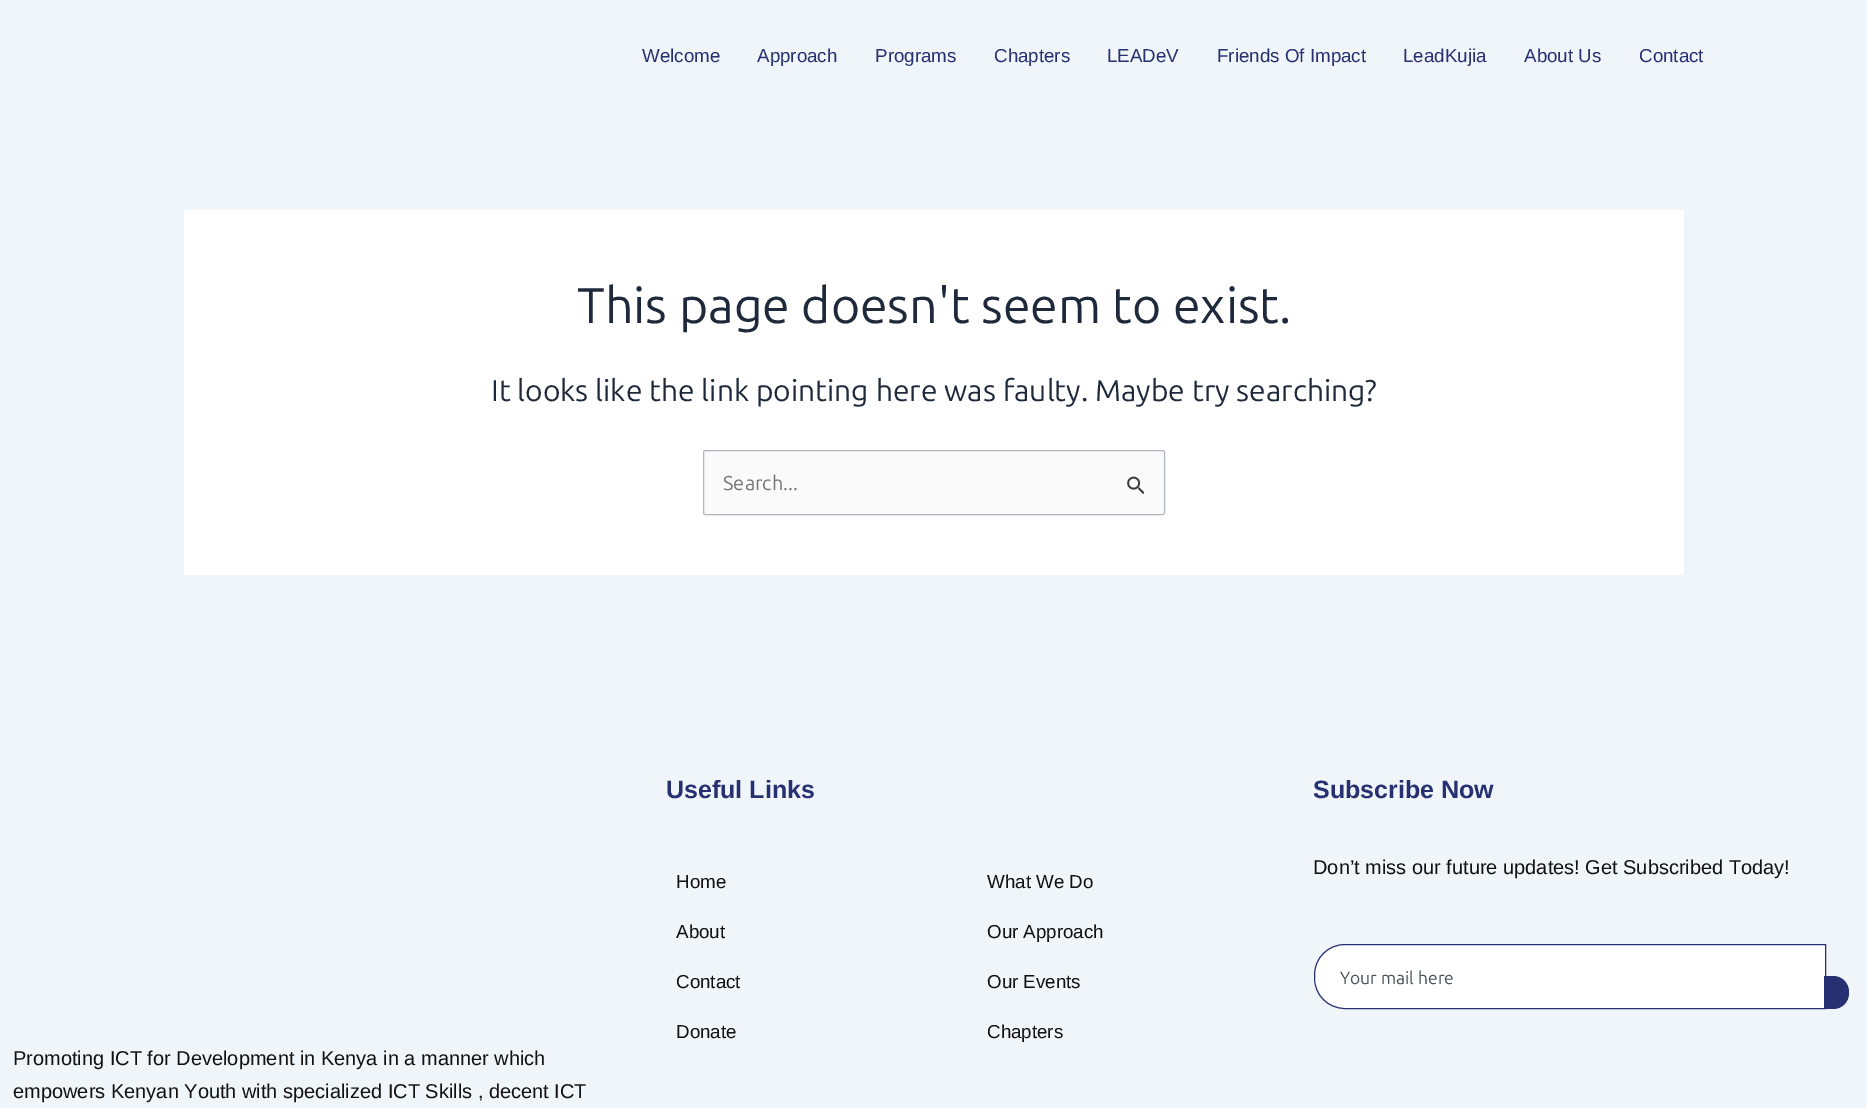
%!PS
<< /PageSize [1867 1108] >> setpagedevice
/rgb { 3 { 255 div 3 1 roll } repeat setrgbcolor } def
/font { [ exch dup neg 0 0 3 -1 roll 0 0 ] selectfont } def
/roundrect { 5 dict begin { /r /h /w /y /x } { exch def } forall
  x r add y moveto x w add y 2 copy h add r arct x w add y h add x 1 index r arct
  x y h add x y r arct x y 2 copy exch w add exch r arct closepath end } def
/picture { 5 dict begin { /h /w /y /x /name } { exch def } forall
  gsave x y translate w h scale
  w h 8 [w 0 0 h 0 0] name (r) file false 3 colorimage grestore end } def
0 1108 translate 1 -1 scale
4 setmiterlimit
240 245 250 rgb
0 0 1867 1108 rectfill
255 255 255 rgb
184 210 1500 365 rectfill
250 250 250 rgb
703.5 450.5 461 64 2 roundrect gsave fill grestore
173 182 190 rgb
stroke
(img/1.rgb) 1127 476 17 18 picture
255 255 255 rgb
1345 944.5 moveto 1825.5 944.5 lineto 1825.5 1008.5 lineto 1345 1008.5 lineto 1328 1008.5 1314.5 995 1314.5 978 curveto 1314.5 975 lineto 1314.5 958 1328 944.5 1345 944.5 curveto closepath gsave fill grestore
39 49 113 rgb
stroke
1824 976 moveto 1833 976 lineto 1842 976 1849 983 1849 992 curveto 1849 993 lineto 1849 1002 1842 1009 1833 1009 curveto 1824 1009 lineto closepath fill
/LiberationSans-Regular 18.75 font
[
  [(Welcome) 642 62]
  [(Approach) 757 62]
  [(Programs) 875 62]
  [(Chapters) 994 62]
  [(LEADeV) 1107 62]
  [(Friends Of Impact) 1217 62]
  [(LeadKujia) 1403 62]
  [(About Us) 1524 62]
  [(Contact) 1639 62]
] { aload pop moveto show } forall
/Ubuntu-Regular 50 font
30 41 59 rgb
577 323 moveto (This page doesn't seem to exist.) show
/Ubuntu-Regular 30 font
491 401 moveto (It looks like the link pointing here was faulty. Maybe try searching?) show
/Ubuntu-Regular 20 font
117 117 117 rgb
723 490 moveto (Search...) show
/LiberationSans-Bold 25 font
39 49 113 rgb
666 798 moveto (Useful Links) show
/LiberationSans-Regular 18.75 font
17 17 17 rgb
[
  [(Home) 676 888]
  [(About) 676 938]
  [(Contact) 676 988]
  [(Donate) 676 1038]
  [(What We Do) 987 888]
  [(Our Approach) 987 938]
  [(Our Events) 987 988]
  [(Chapters) 987 1038]
] { aload pop moveto show } forall
/LiberationSans-Bold 25 font
39 49 113 rgb
1313 798 moveto (Subscribe Now) show
/LiberationSans-Regular 20 font
17 17 17 rgb
1313 874 moveto (Don’t miss our future updates! Get Subscribed Today!) show
/Ubuntu-Regular 17.5 font
73 80 87 rgb
1340 984 moveto (Your mail here) show
/LiberationSans-Regular 20 font
17 17 17 rgb
13 1065 moveto (Promoting ICT for Development in Kenya in a manner which) show
13 1098 moveto (empowers Kenyan Youth with specialized ICT Skills , decent ICT) show
showpage
